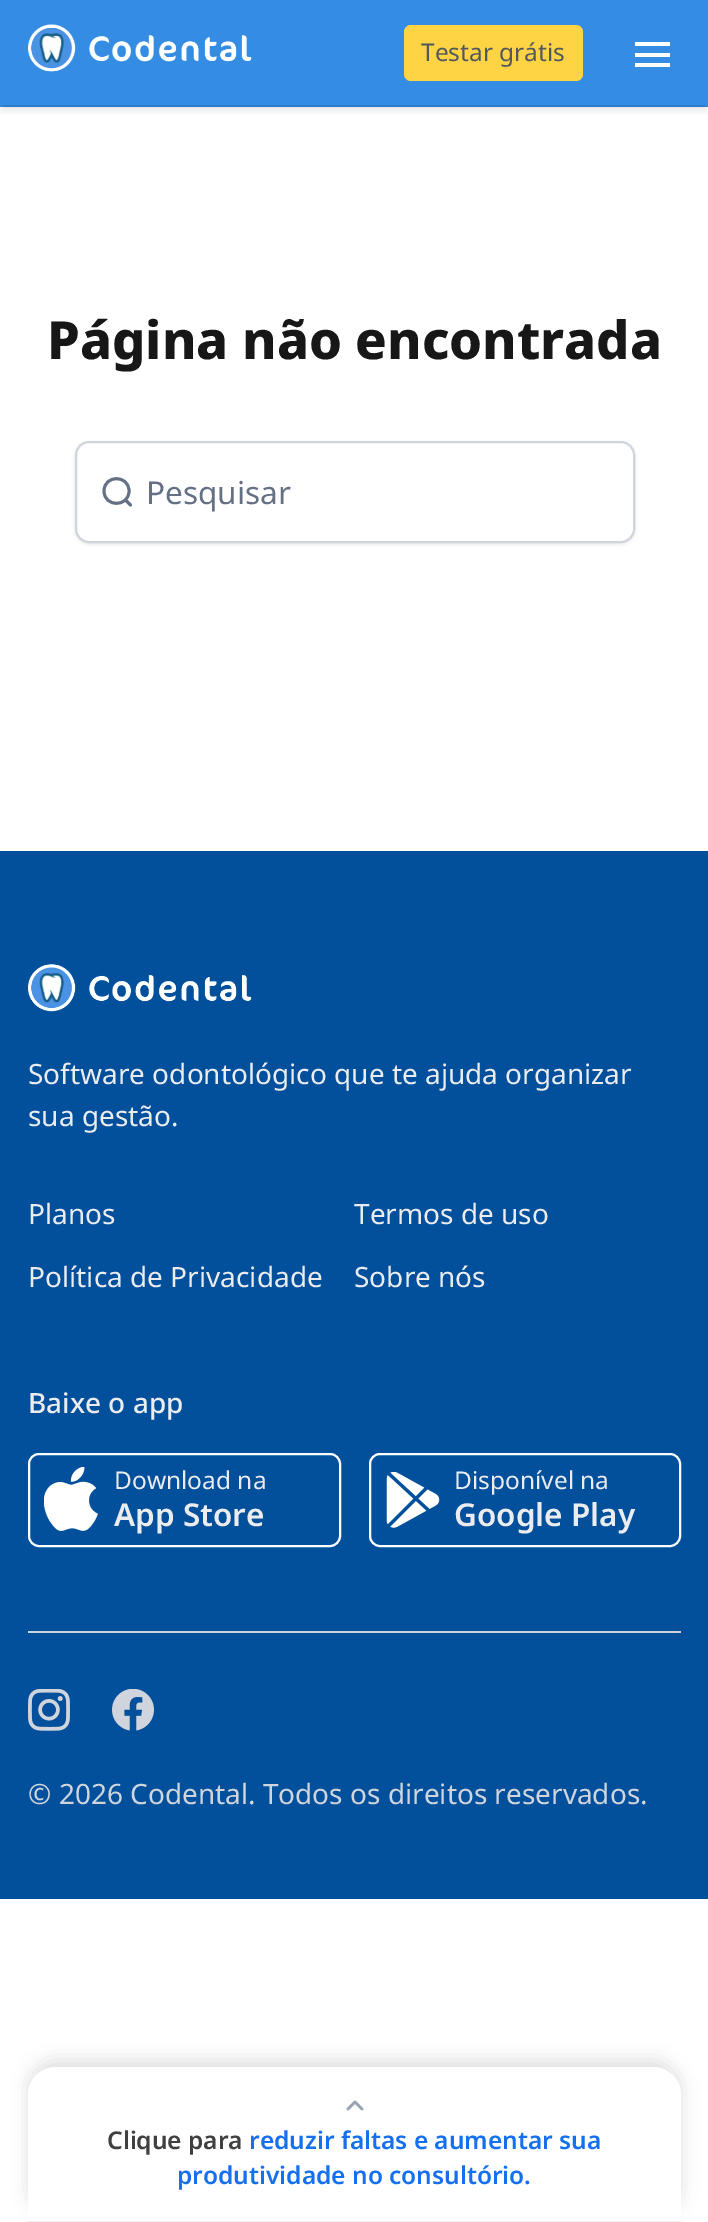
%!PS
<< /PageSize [708 2222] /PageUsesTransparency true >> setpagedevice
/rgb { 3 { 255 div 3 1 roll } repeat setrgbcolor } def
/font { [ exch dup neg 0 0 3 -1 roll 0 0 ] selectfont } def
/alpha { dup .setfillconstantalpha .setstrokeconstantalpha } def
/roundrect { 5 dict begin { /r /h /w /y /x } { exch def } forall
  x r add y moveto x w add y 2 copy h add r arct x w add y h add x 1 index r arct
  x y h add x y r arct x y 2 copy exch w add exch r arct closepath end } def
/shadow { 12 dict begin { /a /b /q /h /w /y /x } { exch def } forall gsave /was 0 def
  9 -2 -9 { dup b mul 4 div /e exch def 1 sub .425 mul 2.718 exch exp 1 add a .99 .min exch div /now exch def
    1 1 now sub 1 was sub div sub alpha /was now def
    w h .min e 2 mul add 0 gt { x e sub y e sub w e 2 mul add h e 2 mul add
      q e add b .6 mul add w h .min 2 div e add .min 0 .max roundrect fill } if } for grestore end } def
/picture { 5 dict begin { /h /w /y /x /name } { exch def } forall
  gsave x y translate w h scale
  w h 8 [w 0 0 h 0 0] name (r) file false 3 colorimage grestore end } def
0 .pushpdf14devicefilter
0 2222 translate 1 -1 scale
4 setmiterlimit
255 255 255 rgb
0 0 708 2222 rectfill
52 141 227 rgb
0 0 708 107 rectfill
gsave
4 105 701 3 rectclip
0 0 0 rgb
4 7 701 98 0 3.5 0.1 shadow
grestore
gsave
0 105 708 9 rectclip
0 0 0 rgb
2 9 705 101 0 5 0.1 shadow
grestore
(img/1.rgb) 28 24 224 48 picture
254 212 69 rgb
404 25 179 56 7 roundrect fill
[
  [635 42 35 4 255 255 255]
  [635 53 35 4 255 255 255]
  [635 63 35 4 255 255 255]
] { aload pop rgb rectfill } forall
0 0 0 rgb
75 443 560 101 14 2 0.05 shadow
16 24 40 rgb
75 443 560 101 14 2 0.05 shadow
255 255 255 rgb
76 442 558 100 13 roundrect gsave fill grestore
208 213 221 rgb
2 setlinewidth
stroke
102 112 133 rgb
2.9 setlinewidth
1 setlinecap
1 setlinejoin
130.5 505 moveto 125.5 500 lineto 129 491 moveto 129 507.5 104 507.5 104 491 curveto 104 474.5 129 474.5 129 491 curveto closepath stroke
2 80 155 rgb
0 851 708 1048 rectfill
(img/2.rgb) 28 964 224 48 picture
255 255 255 rgb
2 setlinewidth
0 setlinecap
0 setlinejoin
29 1454 311 92 10 roundrect stroke
(img/3.rgb) 44 1467 54 64 picture
370 1454 310 92 10 roundrect stroke
(img/4.rgb) 386 1472 54 56 picture
208 213 221 rgb
28 1631 653 2 rectfill
(img/5.rgb) 28 1689 42 42 picture
(img/6.rgb) 112 1689 42 42 picture
0 0 0 rgb
28 2060 653 156 28 9 0.12 shadow
255 255 255 rgb
56 2067 moveto 653 2067 lineto 668.5 2067 681 2079.5 681 2095 curveto 681 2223 lineto 28 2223 lineto 28 2095 lineto 28 2079.5 40.5 2067 56 2067 curveto closepath fill
234 236 240 rgb
28 2221 653 1 rectfill
152 162 179 rgb
2.6 setlinewidth
1 setlinecap
1 setlinejoin
362 2109 moveto 355 2102 lineto 348 2109 lineto stroke
/NotoSans-Regular 24.5 font
82 89 93 rgb
421 61 moveto (Testar grátis) show
/NotoSans-ExtraBold 52.5 font
23 23 23 rgb
47 359 moveto (Página não encontrada) show
/NotoSans-Regular 31.5 font
102 112 133 rgb
146 504 moveto (Pesquisar) show
/NotoSans-Regular 28 font
234 236 240 rgb
[
  [(Software odontológico que te ajuda organizar) 28 1084]
  [(sua gestão.) 28 1126]
  [(Planos) 28 1224]
  [(Termos de uso) 354 1224]
  [(Política de Privacidade) 28 1287]
  [(Sobre nós) 354 1287]
] { aload pop moveto show } forall
/NotoSans-Medium 28 font
28 1413 moveto (Baixe o app) show
/NotoSans-Regular 24.5 font
114 1489 moveto (Download na) show
/NotoSans-SemiBold 31.5 font
114 1526 moveto (App Store) show
/NotoSans-Regular 24.5 font
454 1489 moveto (Disponível na) show
/NotoSans-SemiBold 31.5 font
454 1526 moveto (Google Play) show
/NotoSans-Regular 28 font
208 213 221 rgb
28 1804 moveto (© 2026 Codental. Todos os direitos reservados.) show
/NotoSans-SemiBold 24.5 font
64 64 64 rgb
107 2149 moveto (Clique para) show
21 112 239 rgb
249 2149 moveto (reduzir faltas e aumentar sua) show
177 2184 moveto (produtividade no consultório.) show
.poppdf14devicefilter showpage
